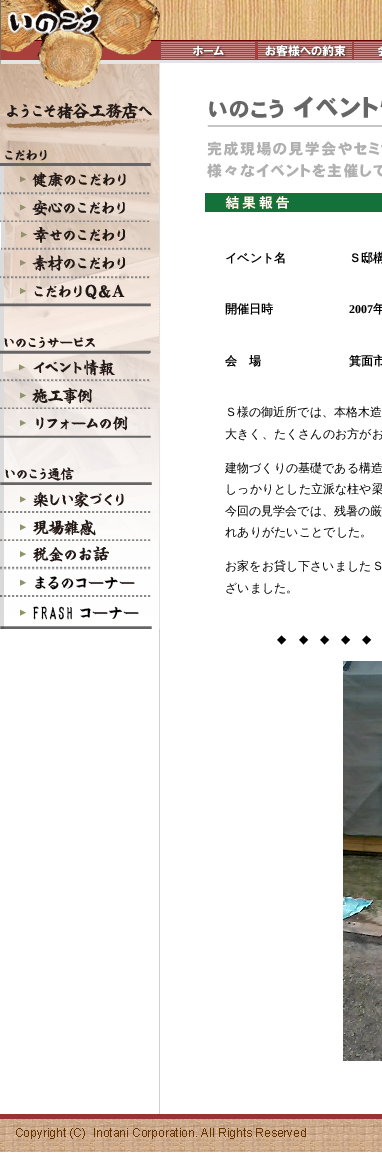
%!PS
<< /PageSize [382 1173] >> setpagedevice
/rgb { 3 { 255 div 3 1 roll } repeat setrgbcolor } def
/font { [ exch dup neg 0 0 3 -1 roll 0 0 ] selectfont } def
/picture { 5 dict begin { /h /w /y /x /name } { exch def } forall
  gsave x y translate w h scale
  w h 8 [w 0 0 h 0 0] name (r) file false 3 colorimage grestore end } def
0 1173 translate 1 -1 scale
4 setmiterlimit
255 255 255 rgb
0 0 382 1173 rectfill
(img/1.rgb) 160 0 222 63 picture
(img/2.rgb) 0 0 160 63 picture
(img/3.rgb) 161 42 94 18 picture
(img/4.rgb) 258 42 94 18 picture
(img/5.rgb) 354 42 28 17 picture
207 207 207 rgb
159 629 1 485 rectfill
(img/6.rgb) 0 63 160 103 picture
(img/7.rgb) 0 166 160 28 picture
(img/8.rgb) 0 194 160 28 picture
(img/9.rgb) 1 222 159 28 picture
(img/10.rgb) 0 250 160 28 picture
(img/11.rgb) 0 278 160 28 picture
(img/12.rgb) 0 306 160 47 picture
(img/13.rgb) 0 353 160 28 picture
(img/14.rgb) 0 381 160 28 picture
(img/15.rgb) 0 409 160 28 picture
(img/16.rgb) 0 437 160 48 picture
(img/17.rgb) 0 485 160 28 picture
(img/18.rgb) 0 513 160 28 picture
(img/19.rgb) 0 541 160 28 picture
(img/20.rgb) 0 569 160 28 picture
(img/21.rgb) 0 597 160 32 picture
(img/22.rgb) 207 96 175 82 picture
(img/23.rgb) 205 193 177 19 picture
(img/24.rgb) 343 661 39 400 picture
(img/25.rgb) 0 1114 382 38 picture
(img/26.rgb) 16 1128 290 11 picture
(img/27.rgb) 310 1119 30 33 picture
/WenQuanYiZenHei-Bold 12 font
0 0 0 rgb
[
  [(イベント名) 225 262]
  [(Ｓ邸構) 349 262]
  [(開催日時) 225 313]
] { aload pop moveto show } forall
/LiberationSerif-Bold 12 font
349 313 moveto (2007) show
/WenQuanYiZenHei-Bold 12 font
[
  [(年) 373 313]
  [(会　場) 225 365]
  [(箕面市) 349 365]
] { aload pop moveto show } forall
/WenQuanYiZenHei-Medium 12 font
[
  [(Ｓ様の御近所では、本格木造) 225 416]
  [(大きく、たくさんのお方がお) 225 438]
  [(建物づくりの基礎である構造) 225 472]
  [(しっかりとした立派な柱や梁) 225 493]
  [(今回の見学会では、残暑の厳) 225 515]
  [(れありがたいことでした。) 225 536]
  [(お家をお貸し下さいましたＳ) 225 570]
  [(ざいました。) 225 592]
] { aload pop moveto show } forall
/DejaVuSans-Regular 12 font
[
  [(◆) 277 643]
  [(◆) 299 643]
  [(◆) 320 643]
  [(◆) 341 643]
  [(◆) 362 643]
] { aload pop moveto show } forall
showpage
